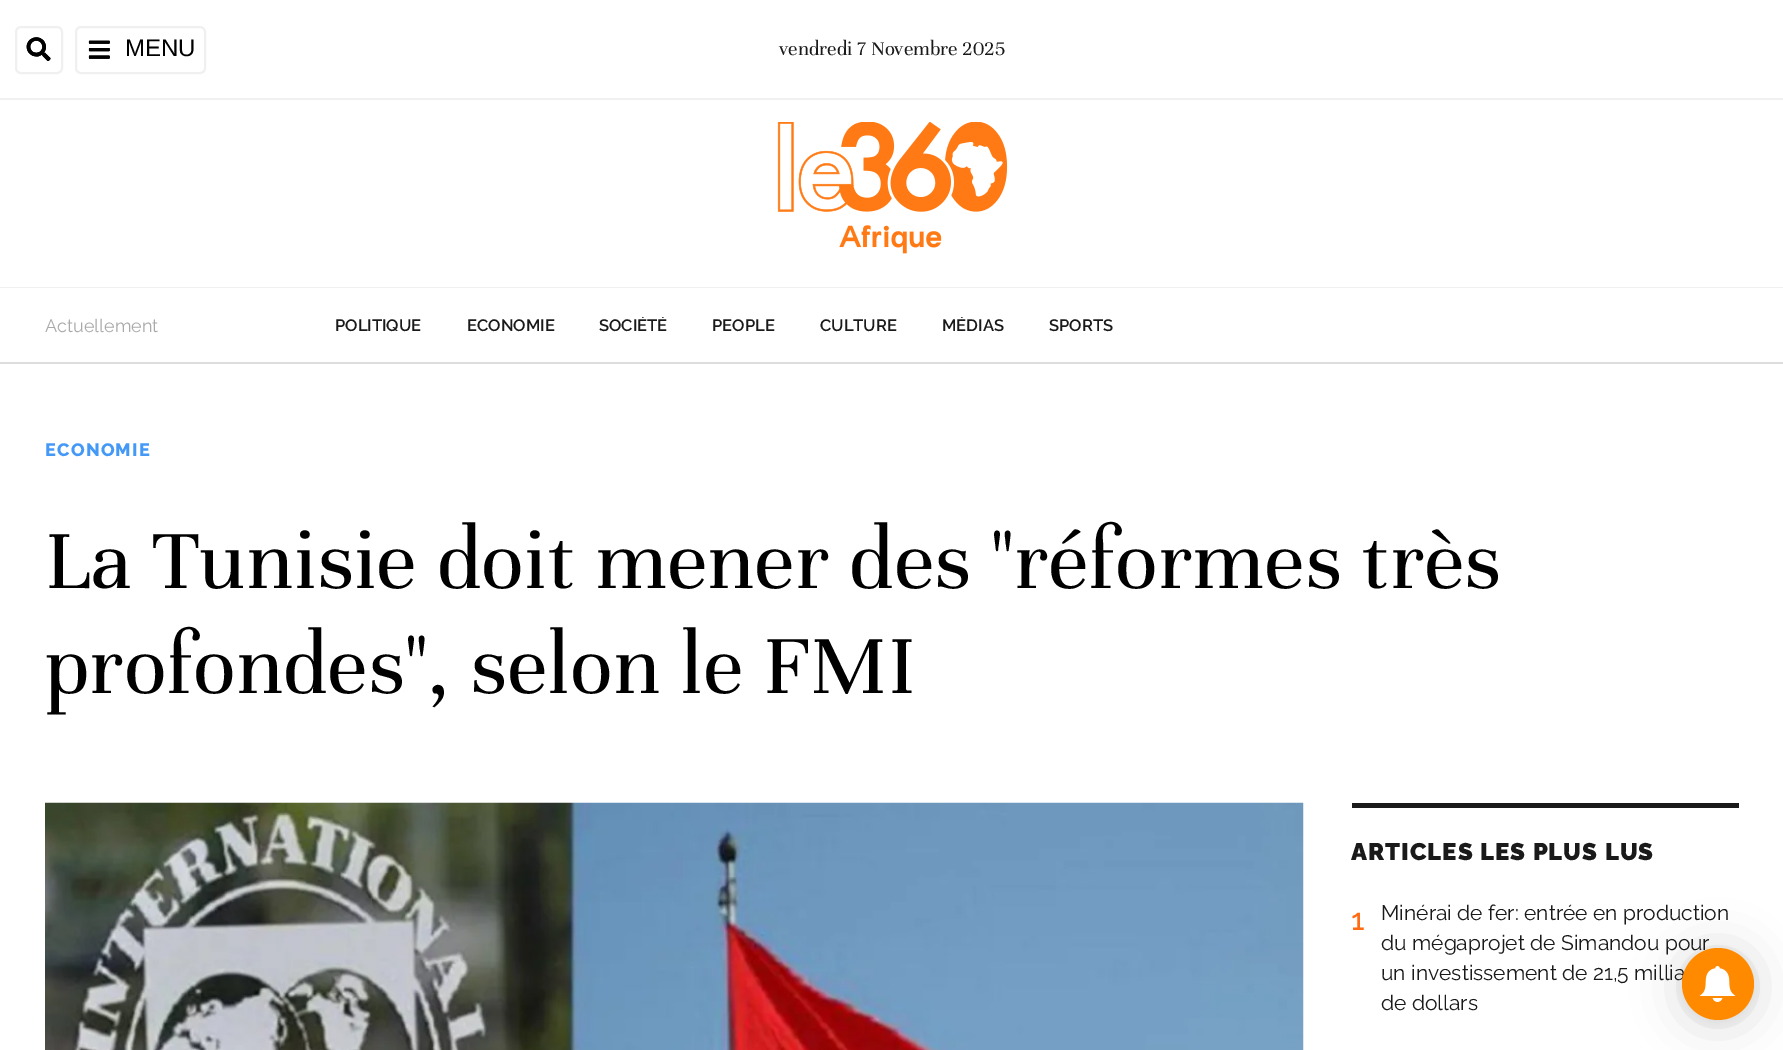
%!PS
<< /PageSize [1783 1050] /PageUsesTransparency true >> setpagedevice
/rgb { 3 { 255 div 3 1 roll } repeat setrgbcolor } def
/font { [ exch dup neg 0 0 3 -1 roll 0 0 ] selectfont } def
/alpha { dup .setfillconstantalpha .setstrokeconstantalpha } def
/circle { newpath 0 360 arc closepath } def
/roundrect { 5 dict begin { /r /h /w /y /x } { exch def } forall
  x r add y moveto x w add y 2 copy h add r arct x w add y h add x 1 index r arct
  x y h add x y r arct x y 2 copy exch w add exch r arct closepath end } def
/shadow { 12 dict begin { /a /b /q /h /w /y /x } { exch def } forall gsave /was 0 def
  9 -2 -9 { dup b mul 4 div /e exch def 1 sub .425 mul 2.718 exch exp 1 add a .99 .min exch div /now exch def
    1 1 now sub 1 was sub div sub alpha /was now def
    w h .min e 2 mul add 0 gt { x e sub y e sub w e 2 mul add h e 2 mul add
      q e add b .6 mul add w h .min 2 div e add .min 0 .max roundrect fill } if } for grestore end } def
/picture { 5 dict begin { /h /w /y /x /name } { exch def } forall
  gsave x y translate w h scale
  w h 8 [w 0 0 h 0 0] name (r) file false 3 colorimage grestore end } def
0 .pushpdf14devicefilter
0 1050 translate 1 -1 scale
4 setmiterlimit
255 255 255 rgb
0 0 1783 1050 rectfill
240 240 240 rgb
0 98 1783 2 rectfill
2 setlinewidth
16 27 46 46 5 roundrect stroke
(img/1.rgb) 26 37 25 24 picture
76 27 129 46 5 roundrect stroke
(img/2.rgb) 88 40 22 19 picture
0 287 1783 1 rectfill
(img/3.rgb) 777 122 231 132 picture
221 221 221 rgb
0 362 1783 2 rectfill
(img/4.rgb) 45 802 1259 248 picture
26 26 26 rgb
1352 803 387 5 rectfill
0 0 0 rgb
1682 951 72 72 36 24 0.16 shadow
1682 950 72 72 36 4.5 0.06 shadow
/LiberationSans-Regular 24 font
125 56 moveto (MENU) show
/Unna-Regular 21 font
26 26 26 rgb
779 55 moveto (vendredi 7 Novembre 2025) show
/Raleway-Regular 18 font
169 169 169 rgb
45 332 moveto (Actuellement) show
/Raleway-SemiBold 16.5 font
26 26 26 rgb
335 331 moveto (POLITIQUE) show
467 331 moveto (ECONOMIE) show
gsave
336 317 1403 19 rectclip
599 331 moveto (SOCIÉTÉ) show
grestore
712 331 moveto (PEOPLE) show
820 331 moveto (CULTURE) show
gsave
336 317 1403 19 rectclip
942 331 moveto (MÉDIAS) show
grestore
1049 331 moveto (SPORTS) show
/Raleway-ExtraBold 18 font
68 153 247 rgb
45 456 moveto 1.25 0 (ECONOMIE) ashow
/Unna-Regular 90 font
0 0 0 rgb
45 588 moveto (La Tunisie doit mener des "réformes très) show
45 693 moveto (profondes", selon le FMI) show
/Raleway-Black 24 font
26 26 26 rgb
1351 860 moveto 1 0 (ARTICLES LES PLUS LUS) ashow
/Raleway-Medium 30 font
255 106 20 rgb
1351 930 moveto -2 0 (1) ashow
/Raleway-Regular 21 font
26 26 26 rgb
[
  [(Minérai de fer: entrée en production) 1381 920]
  [(du mégaprojet de Simandou pour) 1381 950]
  [(un investissement de 21,5 millia) 1381 980]
  [(de dollars) 1381 1010]
] { aload pop moveto show } forall
255 138 0 rgb
1718 984 36 circle fill
(img/5.rgb) 1699 966 37 36 picture
.poppdf14devicefilter showpage
